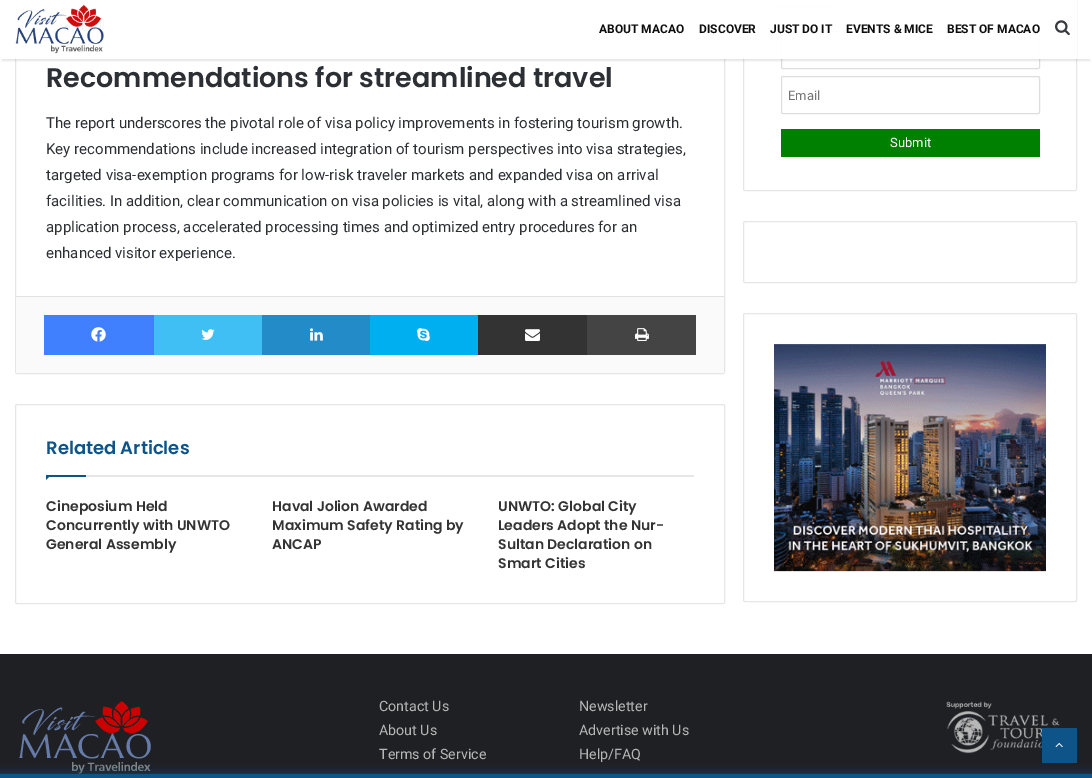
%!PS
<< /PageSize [1092 778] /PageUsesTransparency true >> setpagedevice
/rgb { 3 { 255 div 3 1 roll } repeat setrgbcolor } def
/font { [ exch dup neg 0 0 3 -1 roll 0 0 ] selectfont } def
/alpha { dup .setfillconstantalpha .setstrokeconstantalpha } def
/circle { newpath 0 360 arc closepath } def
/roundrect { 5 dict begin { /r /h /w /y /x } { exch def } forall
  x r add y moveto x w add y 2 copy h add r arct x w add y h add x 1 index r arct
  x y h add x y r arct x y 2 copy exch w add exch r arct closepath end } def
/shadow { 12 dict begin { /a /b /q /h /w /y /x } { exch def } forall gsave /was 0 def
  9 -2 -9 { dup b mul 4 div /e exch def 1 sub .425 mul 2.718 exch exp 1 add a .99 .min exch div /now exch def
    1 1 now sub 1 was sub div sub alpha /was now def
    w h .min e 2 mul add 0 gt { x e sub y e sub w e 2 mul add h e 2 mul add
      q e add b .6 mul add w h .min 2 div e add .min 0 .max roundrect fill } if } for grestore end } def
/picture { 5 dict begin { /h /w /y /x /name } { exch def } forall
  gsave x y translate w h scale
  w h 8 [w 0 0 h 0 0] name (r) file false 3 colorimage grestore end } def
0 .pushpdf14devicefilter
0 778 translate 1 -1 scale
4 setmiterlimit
255 255 255 rgb
0 0 1092 778 rectfill
230 230 230 rgb
15.5 -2.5 709 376 1.5 roundrect stroke
44 47 52 rgb
67.5 26.5 2.5 circle fill
230 230 230 rgb
743.5 -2.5 333 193 1.5 roundrect stroke
814 5 25 2 rectfill
44 47 52 rgb
774 5 moveto 779 5 lineto 774 10 lineto closepath fill
774 5 40 2 rectfill
221 221 221 rgb
781.5 31.5 258 37 1.5 roundrect stroke
gsave
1 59 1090 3 rectclip
0 0 0 rgb
2 5 1088 56 0 1 0.1 shadow
grestore
0.95 alpha
255 255 255 rgb
15 0 1062 59 rectfill
1 alpha
(img/1.rgb) 15 4 89 50 picture
0.95 alpha
774 5 40 5 rectfill
1 alpha
(img/2.rgb) 1055 20 15 16 picture
[
  [16 297 708 76 250 250 250]
  [16 296 708 1 225 225 225]
  [44 315 110 40 64 128 255]
] { aload pop rgb rectfill } forall
(img/3.rgb) 91 327 15 15 picture
64 191 245 rgb
154 315 108 40 rectfill
(img/4.rgb) 201 329 14 11 picture
35 140 200 rgb
262 315 108 40 rectfill
(img/5.rgb) 310 328 13 13 picture
0 175 240 rgb
370 315 108 40 rectfill
(img/6.rgb) 417 328 13 13 picture
51 51 51 rgb
478 315 109 40 rectfill
(img/7.rgb) 525 329 15 12 picture
68 68 68 rgb
587 315 109 40 rectfill
(img/8.rgb) 635 328 14 13 picture
230 230 230 rgb
15.5 404.5 709 199 1.5 roundrect stroke
86 475 608 2 rectfill
14 84 136 rgb
46 475 moveto 51 475 lineto 46 480 lineto closepath fill
46 475 40 2 rectfill
221 221 221 rgb
781.5 76.5 258 37 1.5 roundrect stroke
0 128 0 rgb
781 129 259 28 rectfill
230 230 230 rgb
743.5 221.5 333 61 1.5 roundrect stroke
743.5 313.5 333 288 1.5 roundrect stroke
(img/9.rgb) 774 344 272 228 picture
31 32 36 rgb
0 654 1092 120 rectfill
(img/10.rgb) 19 701 132 73 picture
(img/11.rgb) 946 701 125 53 picture
14 84 136 rgb
1042 728 35 35 rectfill
(img/12.rgb) 1055 742 8 6 picture
0 774 1092 4 0 5 0.7 shadow
0 774 1092 4 rectfill
/Roboto-Bold 12 font
13 13 13 rgb
[
  [(ABOUT MACAO) 599 33]
  [(DISCOVER) 699 33]
  [(JUST DO IT) 770 33]
  [(EVENTS & MICE) 846 33]
  [(BEST OF MACAO) 947 33]
] { aload pop moveto show } forall
/Poppins-SemiBold 27 font
44 47 52 rgb
46 87 moveto (Recommendations for streamlined travel) show
/Roboto-Regular 15 font
[
  [(The report underscores the pivotal role of visa policy improvements in fostering tourism growth.) 46 128]
  [(Key recommendations include increased integration of tourism perspectives into visa strategies,) 46 154]
  [(targeted visa-exemption programs for low-risk traveler markets and expanded visa on arrival) 46 180]
  [(facilities. In addition, clear communication on visa policies is vital, along with a streamlined visa) 46 206]
  [(application process, accelerated processing times and optimized entry procedures for an) 46 232]
  [(enhanced visitor experience.) 46 258]
] { aload pop moveto show } forall
/Poppins-SemiBold 18 font
14 84 136 rgb
46 454 moveto (Related Articles) show
/Poppins-SemiBold 14 font
51 51 51 rgb
[
  [(Cineposium Held) 46 511]
  [(Concurrently with UNWTO) 46 530]
  [(General Assembly) 46 549]
  [(Haval Jolion Awarded) 272 511]
  [(Maximum Safety Rating by) 272 530]
  [(ANCAP) 272 549]
  [(UNWTO: Global City) 498 511]
  [(Leaders Adopt the Nur-) 498 530]
  [(Sultan Declaration on) 498 549]
  [(Smart Cities) 498 568]
] { aload pop moveto show } forall
/Roboto-Regular 13 font
117 117 117 rgb
788 100 moveto (Email) show
255 255 255 rgb
890 147 moveto (Submit) show
/Roboto-Regular 14.25 font
183 183 183 rgb
[
  [(Contact Us) 379 711]
  [(About Us) 379 735]
  [(Terms of Service) 379 759]
  [(Newsletter) 579 711]
  [(Advertise with Us) 579 735]
  [(Help/FAQ) 579 759]
] { aload pop moveto show } forall
.poppdf14devicefilter showpage
